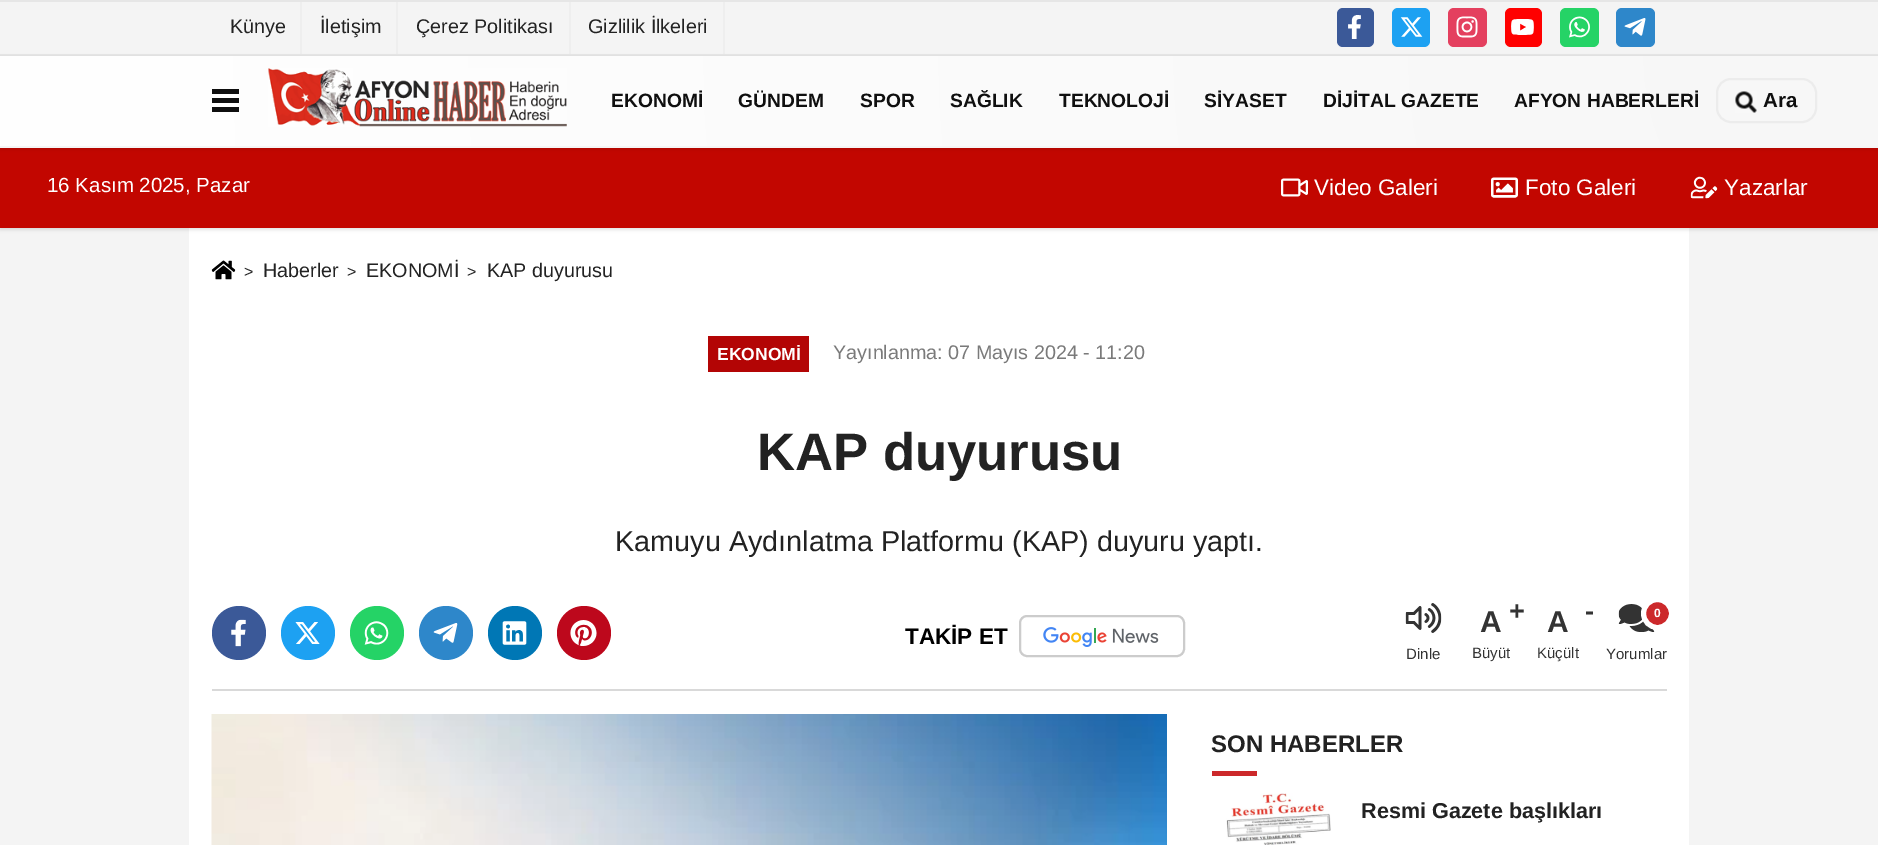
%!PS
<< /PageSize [1878 845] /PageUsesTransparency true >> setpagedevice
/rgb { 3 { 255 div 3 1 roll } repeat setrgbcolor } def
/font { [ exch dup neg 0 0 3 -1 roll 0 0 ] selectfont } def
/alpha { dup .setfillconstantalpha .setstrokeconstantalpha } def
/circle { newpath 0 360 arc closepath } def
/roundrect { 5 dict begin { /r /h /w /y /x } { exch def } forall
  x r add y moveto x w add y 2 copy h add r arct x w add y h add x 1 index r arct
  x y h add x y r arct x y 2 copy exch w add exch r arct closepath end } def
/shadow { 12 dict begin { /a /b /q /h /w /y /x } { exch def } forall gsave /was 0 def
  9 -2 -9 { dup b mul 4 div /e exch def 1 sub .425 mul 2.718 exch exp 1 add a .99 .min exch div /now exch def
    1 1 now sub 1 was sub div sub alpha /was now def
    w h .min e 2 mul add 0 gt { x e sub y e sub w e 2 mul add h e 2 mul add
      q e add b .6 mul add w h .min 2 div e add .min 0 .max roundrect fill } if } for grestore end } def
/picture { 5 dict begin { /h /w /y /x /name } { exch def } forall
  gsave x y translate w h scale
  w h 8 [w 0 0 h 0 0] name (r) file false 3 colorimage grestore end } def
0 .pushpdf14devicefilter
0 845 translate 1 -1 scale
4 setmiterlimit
244 244 244 rgb
0 0 1878 845 rectfill
[
  [0 0 1878 2 230 230 230]
  [300 2 2 52 238 238 238]
  [396 2 2 52 238 238 238]
  [569 2 2 52 238 238 238]
  [723 2 2 52 238 238 238]
] { aload pop rgb rectfill } forall
59 89 152 rgb
1337 8 37 39 6 roundrect fill
(img/1.rgb) 1348 15 13 24 picture
29 161 242 rgb
1392 8 38 39 6 roundrect fill
(img/2.rgb) 1400 17 23 20 picture
228 64 95 rgb
1448 8 39 39 6 roundrect fill
(img/3.rgb) 1456 16 22 22 picture
255 0 0 rgb
1505 8 37 39 6 roundrect fill
(img/4.rgb) 1511 19 23 16 picture
37 211 102 rgb
1560 8 39 39 6 roundrect fill
(img/5.rgb) 1569 16 21 22 picture
46 135 202 rgb
1616 8 39 39 6 roundrect fill
(img/6.rgb) 1624 18 22 18 picture
230 230 230 rgb
0 54 1878 2 rectfill
255 255 255 rgb
189 228 1500 617 rectfill
0 0 0 rgb
0 149 1878 81 0 1.5 0.1 shadow
194 6 0 rgb
0 148 1878 80 rectfill
0 0 0 rgb
0 57 1878 92 0 1.5 0.1 shadow
gsave 0 56 moveto 1878 56 lineto 1878 146 lineto 0 146 lineto closepath clip newpath 1878 56 translate 1880 1880 scale
<< /ShadingType 3 /ColorSpace /DeviceRGB /Coords [0 0 0 0 0 1] /Extend [true true] /Function << /FunctionType 2 /Domain [0 1] /C0 [0.969 0.969 0.969] /C1 [1 1 1] /N 1 >> >> shfill grestore
[
  [0 146 1878 2 245 245 245]
  [212 89 27 5 15 15 15]
  [212 98 27 5 15 15 15]
  [212 107 27 5 15 15 15]
] { aload pop rgb rectfill } forall
(img/7.rgb) 268 68 299 59 picture
236 236 236 rgb
2 setlinewidth
1717 79 99 43 14 roundrect stroke
(img/8.rgb) 1735 91 22 22 picture
(img/9.rgb) 1281 178 27 19 picture
(img/10.rgb) 1491 177 27 21 picture
(img/11.rgb) 1690 176 28 23 picture
(img/12.rgb) 211 260 25 20 picture
179 5 5 rgb
708 336 101 36 rectfill
59 89 152 rgb
239 633 27 circle fill
(img/13.rgb) 231 619 15 28 picture
29 161 242 rgb
308 633 27 circle fill
(img/14.rgb) 295 622 25 22 picture
37 211 102 rgb
377 633 27 circle fill
(img/15.rgb) 364 621 25 24 picture
46 135 202 rgb
446 633 27 circle fill
(img/16.rgb) 433 623 25 20 picture
0 119 181 rgb
515 633 27 circle fill
(img/17.rgb) 502 621 25 24 picture
189 8 28 rgb
584 633 27 circle fill
(img/18.rgb) 570 620 27 26 picture
204 204 204 rgb
1020 616 164 40 7 roundrect stroke
(img/19.rgb) 1043 627 116 20 picture
(img/20.rgb) 1405 603 37 30 picture
(img/21.rgb) 1618 604 37 28 picture
204 41 43 rgb
1657.5 613.5 14 circle gsave fill grestore
255 255 255 rgb
5 setlinewidth
stroke
217 217 217 rgb
212 689 1455 2 rectfill
(img/22.rgb) 211 714 956 131 picture
204 41 43 rgb
1212 771 45 5 rectfill
(img/23.rgb) 1226 793 105 52 picture
/LiberationSans-Regular 19.75 font
34 34 34 rgb
[
  [(Künye) 230 33]
  [(İletişim) 320 33]
  [(Çerez Politikası) 416 33]
  [(Gizlilik İlkeleri) 588 33]
] { aload pop moveto show } forall
/LiberationSans-Bold 19.25 font
15 15 15 rgb
[
  [(EKONOMİ) 611 107]
  [(GÜNDEM) 738 107]
  [(SPOR) 860 107]
  [(SAĞLIK) 950 107]
  [(TEKNOLOJİ) 1059 107]
  [(SİYASET) 1204 107]
  [(DİJİTAL GAZETE) 1323 107]
  [(AFYON HABERLERİ) 1514 107]
] { aload pop moveto show } forall
/LiberationSans-Bold 20.5 font
1763 107 moveto (Ara) show
/LiberationSans-Regular 20.5 font
255 255 255 rgb
47 192 moveto (16 Kasım 2025, Pazar) show
/LiberationSans-Regular 22.5 font
[
  [(Video Galeri) 1314 195]
  [(Foto Galeri) 1525 195]
  [(Yazarlar) 1724 195]
] { aload pop moveto show } forall
/LiberationSans-Regular 16 font
34 34 34 rgb
244 277 moveto (>) show
/LiberationSans-Regular 19.75 font
263 277 moveto (Haberler) show
/LiberationSans-Regular 16 font
347 277 moveto (>) show
/LiberationSans-Regular 19.75 font
366 277 moveto (EKONOMİ) show
/LiberationSans-Regular 16 font
467 277 moveto (>) show
/LiberationSans-Regular 19.75 font
487 277 moveto (KAP duyurusu) show
/LiberationSans-Bold 17.5 font
255 255 255 rgb
717 360 moveto (EKONOMİ) show
/LiberationSans-Regular 19.75 font
122 122 122 rgb
833 359 moveto (Yayınlanma: 07 Mayıs 2024 - 11:20) show
/LiberationSans-Bold 52.75 font
34 34 34 rgb
757 470 moveto -0.1 0 (KAP duyurusu) ashow
/LiberationSans-Regular 28.8 font
615 551 moveto (Kamuyu Aydınlatma Platformu \(KAP\) duyuru yaptı.) show
/LiberationSans-Bold 22.5 font
0 0 0 rgb
905 644 moveto (TAKİP ET) show
/LiberationSans-Regular 15 font
51 51 51 rgb
1406 659 moveto (Dinle) show
/LiberationSans-Bold 30 font
1480 632 moveto (A) show
/LiberationSans-Bold 27 font
1509 620 moveto (+) show
/LiberationSans-Regular 15 font
1472 658 moveto (Büyüt) show
/LiberationSans-Bold 30 font
1547 632 moveto (A) show
/LiberationSans-Bold 27 font
1585 620 moveto (-) show
/LiberationSans-Regular 15 font
1537 658 moveto (Küçült) show
/LiberationSans-Bold 12 font
255 255 255 rgb
1654 617 moveto (0) show
/LiberationSans-Regular 15 font
51 51 51 rgb
1606 659 moveto (Yorumlar) show
/LiberationSans-Bold 24 font
34 34 34 rgb
1211 752 moveto (SON HABERLER) show
/LiberationSans-Bold 21.6 font
1361 818 moveto (Resmi Gazete başlıkları) show
.poppdf14devicefilter showpage
